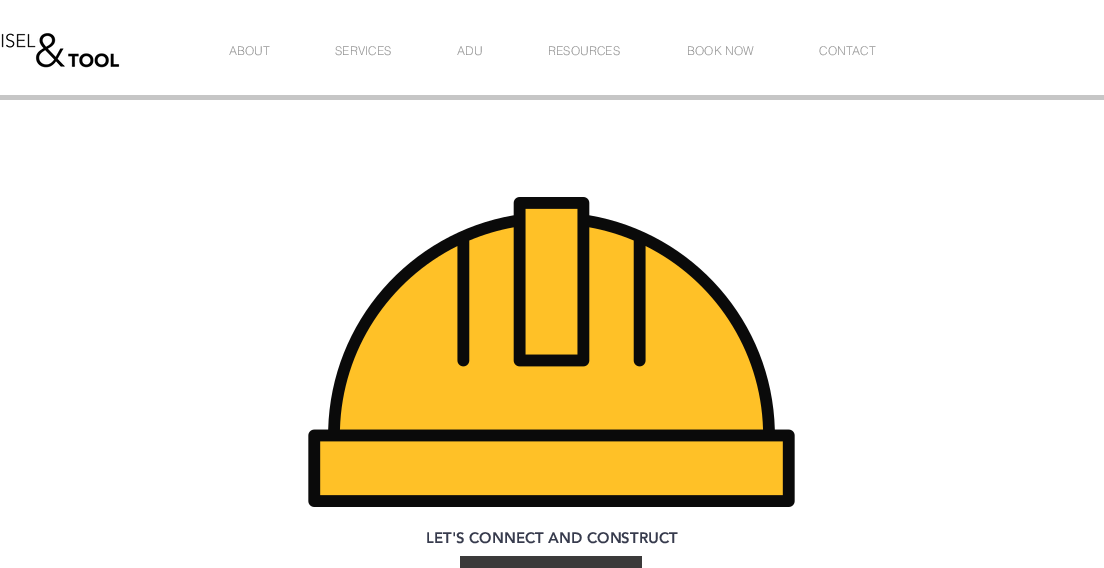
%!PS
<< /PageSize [1104 568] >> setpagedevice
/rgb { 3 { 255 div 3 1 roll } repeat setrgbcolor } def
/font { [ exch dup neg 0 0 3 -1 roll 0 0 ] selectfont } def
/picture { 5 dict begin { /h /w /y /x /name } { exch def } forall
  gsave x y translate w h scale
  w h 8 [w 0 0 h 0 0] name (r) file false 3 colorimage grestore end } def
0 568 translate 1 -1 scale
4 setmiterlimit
255 255 255 rgb
0 0 1104 568 rectfill
(img/1.rgb) 1 33 119 35 picture
198 198 198 rgb
0 95 1104 5 rectfill
(img/2.rgb) 308 197 487 310 picture
59 58 58 rgb
460 556 182 12 rectfill
/helvetica-Light 12 font
148 148 148 rgb
[
  [(ABOUT) 229 55]
  [(SERVICES) 335 55]
  [(ADU) 457 55]
  [(RESOURCES) 548 55]
  [(BOOK NOW) 687 55]
  [(CONTACT) 819 55]
] { aload pop moveto show } forall
/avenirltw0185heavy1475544-Black 15 font
55 59 77 rgb
426 543 moveto (LET'S CONNECT AND CONSTRUCT) show
showpage
